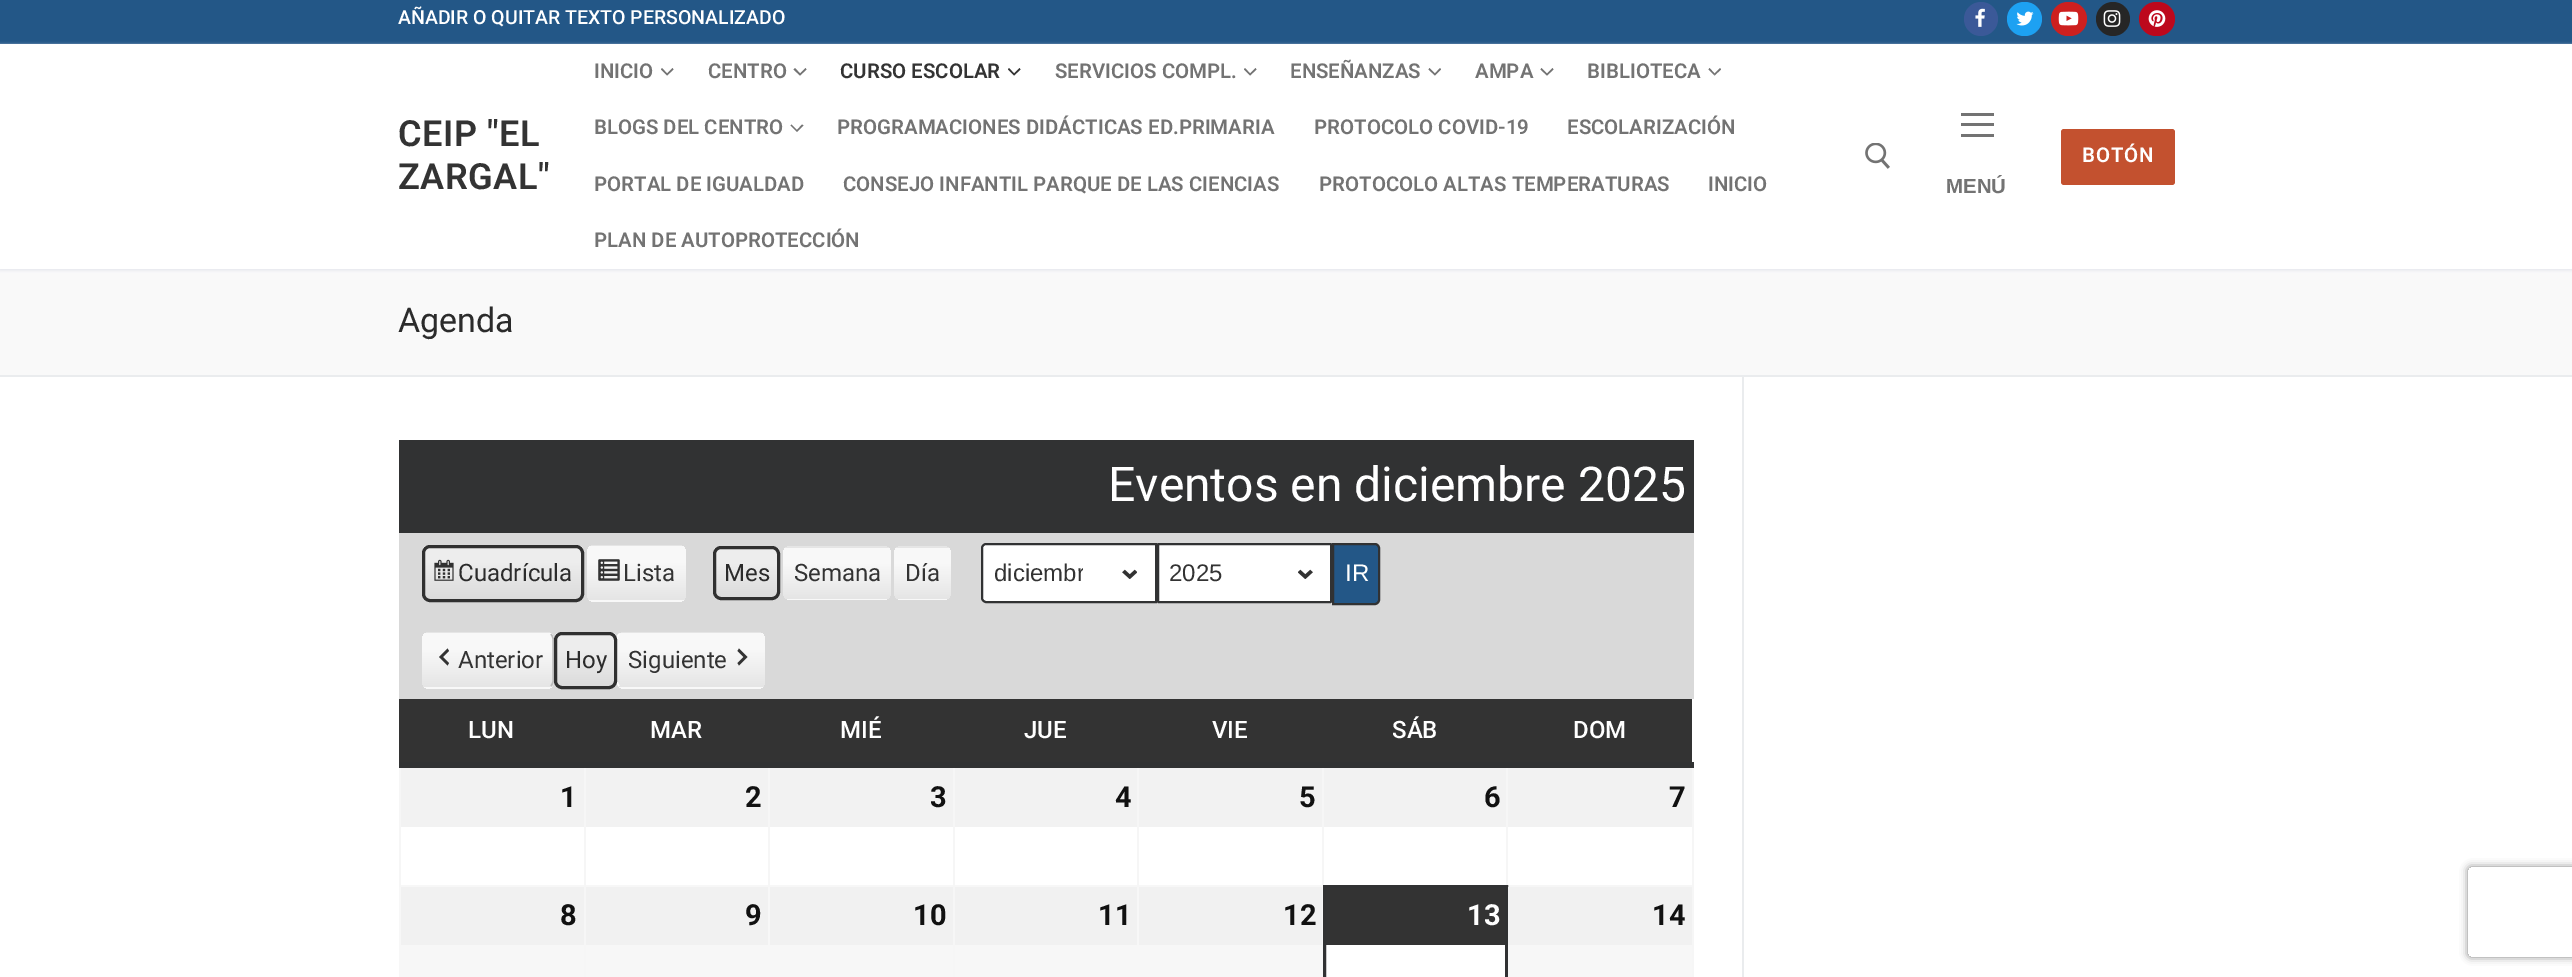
%!PS
<< /PageSize [2572 977] /PageUsesTransparency true >> setpagedevice
/rgb { 3 { 255 div 3 1 roll } repeat setrgbcolor } def
/font { [ exch dup neg 0 0 3 -1 roll 0 0 ] selectfont } def
/alpha { dup .setfillconstantalpha .setstrokeconstantalpha } def
/circle { newpath 0 360 arc closepath } def
/roundrect { 5 dict begin { /r /h /w /y /x } { exch def } forall
  x r add y moveto x w add y 2 copy h add r arct x w add y h add x 1 index r arct
  x y h add x y r arct x y 2 copy exch w add exch r arct closepath end } def
/shadow { 12 dict begin { /a /b /q /h /w /y /x } { exch def } forall gsave /was 0 def
  9 -2 -9 { dup b mul 4 div /e exch def 1 sub .425 mul 2.718 exch exp 1 add a .99 .min exch div /now exch def
    1 1 now sub 1 was sub div sub alpha /was now def
    w h .min e 2 mul add 0 gt { x e sub y e sub w e 2 mul add h e 2 mul add
      q e add b .6 mul add w h .min 2 div e add .min 0 .max roundrect fill } if } for grestore end } def
/picture { 5 dict begin { /h /w /y /x /name } { exch def } forall
  gsave x y translate w h scale
  w h 8 [w 0 0 h 0 0] name (r) file false 3 colorimage grestore end } def
0 .pushpdf14devicefilter
0 977 translate 1 -1 scale
4 setmiterlimit
255 255 255 rgb
0 0 2572 977 rectfill
35 87 135 rgb
0 0 2572 44 rectfill
59 89 152 rgb
1981 19 17 circle fill
(img/1.rgb) 1975 8 10 19 picture
29 161 242 rgb
2007 2 35 34 17 roundrect fill
(img/2.rgb) 2016 11 18 15 picture
205 32 31 rgb
2051 2 36 34 17 roundrect fill
(img/3.rgb) 2058 11 21 15 picture
38 38 38 rgb
2113 19 17 circle fill
(img/4.rgb) 2103 10 18 17 picture
189 8 28 rgb
2139 2 36 34 17 roundrect fill
(img/5.rgb) 2148 10 18 17 picture
249 249 249 rgb
0 269 2572 106 rectfill
225 229 234 rgb
0 45 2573 225 0 1.5 1 shadow
255 255 255 rgb
0 44 2572 225 rectfill
115 115 115 rgb
667 75.5 moveto 661 69.5 lineto 662 68 lineto 667 73.5 lineto closepath 673.5 69.5 moveto 667 75.5 lineto 667 73.5 lineto 672.5 68 lineto closepath fill
800 75.5 moveto 793.5 69.5 lineto 795 68 lineto 800 73.5 lineto closepath 806.5 69.5 moveto 800 75.5 lineto 800 73.5 lineto 805.5 68 lineto closepath fill
51 51 51 rgb
1014 75.5 moveto 1008 69.5 lineto 1009 68 lineto 1014 73.5 lineto closepath 1020.5 69.5 moveto 1014 75.5 lineto 1014 73.5 lineto 1019.5 68 lineto closepath fill
115 115 115 rgb
1250 75.5 moveto 1244 69.5 lineto 1245 68 lineto 1250 73.5 lineto closepath 1256.5 69.5 moveto 1250 75.5 lineto 1250 73.5 lineto 1255.5 68 lineto closepath fill
1435 75.5 moveto 1428.5 69.5 lineto 1429.5 68 lineto 1435 73.5 lineto closepath 1441 69.5 moveto 1435 75.5 lineto 1435 73.5 lineto 1440 68 lineto closepath fill
1547 75.5 moveto 1540.5 69.5 lineto 1541.5 68 lineto 1547 73.5 lineto closepath 1553.5 69.5 moveto 1547 75.5 lineto 1547 73.5 lineto 1552.5 68 lineto closepath fill
1714.5 75.5 moveto 1708.5 69.5 lineto 1709.5 68 lineto 1714.5 73.5 lineto closepath fill
0.55 alpha
0 0 0 rgb
1721 69.5 moveto 1714.5 75.5 lineto 1714.5 73.5 lineto 1720 68 lineto closepath fill
1 alpha
115 115 115 rgb
797 132 moveto 790.5 125.5 lineto 791.5 124.5 lineto 797 130 lineto closepath 803.5 125.5 moveto 797 132 lineto 797 130 lineto 802 124.5 lineto closepath fill
(img/6.rgb) 1865 143 25 26 picture
195 81 47 rgb
2061 129 114 56 3 roundrect fill
[
  [1961 123 33 3 115 115 115]
  [1961 113 33 3 115 115 115]
  [1961 134 33 3 115 115 115]
  [0 375 2572 2 234 236 238]
  [1742 377 2 600 234 236 238]
  [399 440 1295 93 49 50 51]
  [399 533 1295 166 217 217 217]
] { aload pop rgb rectfill } forall
gsave
422 545 162 57 8 roundrect clip newpath
gsave 422 546 moveto 584 546 lineto 584 600 lineto 422 600 lineto closepath clip newpath
<< /ShadingType 2 /ColorSpace /DeviceRGB /Coords [503 600 503 546] /Extend [true true] /Function << /FunctionType 3 /Domain [0 1] /Functions [<< /FunctionType 2 /Domain [0 1] /C0 [0.859 0.859 0.859] /C1 [0.929 0.929 0.929] /N 1 >> << /FunctionType 2 /Domain [0 1] /C0 [0.929 0.929 0.929] /C1 [0.929 0.929 0.929] /N 1 >>] /Bounds [0.7] /Encode [0 1 0 1] >> >> shfill grestore
grestore
(img/7.rgb) 434 559 20 22 picture
48 48 48 rgb
3 setlinewidth
423.5 546.5 159 54 6.5 roundrect stroke
gsave
587 545 99 57 8 roundrect clip newpath
gsave 587 545 moveto 686 545 lineto 686 546 lineto 587 546 lineto closepath clip newpath
<< /ShadingType 2 /ColorSpace /DeviceRGB /Coords [636 546 636 492] /Extend [true true] /Function << /FunctionType 3 /Domain [0 1] /Functions [<< /FunctionType 2 /Domain [0 1] /C0 [0.898 0.898 0.898] /C1 [0.973 0.973 0.973] /N 1 >> << /FunctionType 2 /Domain [0 1] /C0 [0.973 0.973 0.973] /C1 [0.973 0.973 0.973] /N 1 >>] /Bounds [0.7] /Encode [0 1 0 1] >> >> shfill grestore
gsave 587 546 moveto 686 546 lineto 686 600 lineto 587 600 lineto closepath clip newpath
<< /ShadingType 2 /ColorSpace /DeviceRGB /Coords [636 600 636 546] /Extend [true true] /Function << /FunctionType 3 /Domain [0 1] /Functions [<< /FunctionType 2 /Domain [0 1] /C0 [0.898 0.898 0.898] /C1 [0.973 0.973 0.973] /N 1 >> << /FunctionType 2 /Domain [0 1] /C0 [0.973 0.973 0.973] /C1 [0.973 0.973 0.973] /N 1 >>] /Bounds [0.7] /Encode [0 1 0 1] >> >> shfill grestore
gsave 587 600 moveto 686 600 lineto 686 602 lineto 587 602 lineto closepath clip newpath
<< /ShadingType 2 /ColorSpace /DeviceRGB /Coords [636 654 636 600] /Extend [true true] /Function << /FunctionType 3 /Domain [0 1] /Functions [<< /FunctionType 2 /Domain [0 1] /C0 [0.898 0.898 0.898] /C1 [0.973 0.973 0.973] /N 1 >> << /FunctionType 2 /Domain [0 1] /C0 [0.973 0.973 0.973] /C1 [0.973 0.973 0.973] /N 1 >>] /Bounds [0.7] /Encode [0 1 0 1] >> >> shfill grestore
grestore
(img/8.rgb) 598 559 22 22 picture
gsave
713 546 67 54 8 roundrect clip newpath
gsave 713 548 moveto 780 548 lineto 780 599 lineto 713 599 lineto closepath clip newpath
<< /ShadingType 2 /ColorSpace /DeviceRGB /Coords [746 599 746 548] /Extend [true true] /Function << /FunctionType 3 /Domain [0 1] /Functions [<< /FunctionType 2 /Domain [0 1] /C0 [0.859 0.859 0.859] /C1 [0.929 0.929 0.929] /N 1 >> << /FunctionType 2 /Domain [0 1] /C0 [0.929 0.929 0.929] /C1 [0.929 0.929 0.929] /N 1 >>] /Bounds [0.7] /Encode [0 1 0 1] >> >> shfill grestore
grestore
714.5 547.5 64 51 6.5 roundrect stroke
gsave
783 546 108 54 8 roundrect clip newpath
gsave 783 546 moveto 891 546 lineto 891 548 lineto 783 548 lineto closepath clip newpath
<< /ShadingType 2 /ColorSpace /DeviceRGB /Coords [837 548 837 497] /Extend [true true] /Function << /FunctionType 3 /Domain [0 1] /Functions [<< /FunctionType 2 /Domain [0 1] /C0 [0.898 0.898 0.898] /C1 [0.973 0.973 0.973] /N 1 >> << /FunctionType 2 /Domain [0 1] /C0 [0.973 0.973 0.973] /C1 [0.973 0.973 0.973] /N 1 >>] /Bounds [0.7] /Encode [0 1 0 1] >> >> shfill grestore
gsave 783 548 moveto 891 548 lineto 891 599 lineto 783 599 lineto closepath clip newpath
<< /ShadingType 2 /ColorSpace /DeviceRGB /Coords [837 599 837 548] /Extend [true true] /Function << /FunctionType 3 /Domain [0 1] /Functions [<< /FunctionType 2 /Domain [0 1] /C0 [0.898 0.898 0.898] /C1 [0.973 0.973 0.973] /N 1 >> << /FunctionType 2 /Domain [0 1] /C0 [0.973 0.973 0.973] /C1 [0.973 0.973 0.973] /N 1 >>] /Bounds [0.7] /Encode [0 1 0 1] >> >> shfill grestore
gsave 783 599 moveto 891 599 lineto 891 600 lineto 783 600 lineto closepath clip newpath
<< /ShadingType 2 /ColorSpace /DeviceRGB /Coords [837 650 837 599] /Extend [true true] /Function << /FunctionType 3 /Domain [0 1] /Functions [<< /FunctionType 2 /Domain [0 1] /C0 [0.898 0.898 0.898] /C1 [0.973 0.973 0.973] /N 1 >> << /FunctionType 2 /Domain [0 1] /C0 [0.973 0.973 0.973] /C1 [0.973 0.973 0.973] /N 1 >>] /Bounds [0.7] /Encode [0 1 0 1] >> >> shfill grestore
grestore
gsave
894 546 57 54 8 roundrect clip newpath
gsave 894 546 moveto 951 546 lineto 951 548 lineto 894 548 lineto closepath clip newpath
<< /ShadingType 2 /ColorSpace /DeviceRGB /Coords [923 548 923 497] /Extend [true true] /Function << /FunctionType 3 /Domain [0 1] /Functions [<< /FunctionType 2 /Domain [0 1] /C0 [0.898 0.898 0.898] /C1 [0.973 0.973 0.973] /N 1 >> << /FunctionType 2 /Domain [0 1] /C0 [0.973 0.973 0.973] /C1 [0.973 0.973 0.973] /N 1 >>] /Bounds [0.7] /Encode [0 1 0 1] >> >> shfill grestore
gsave 894 548 moveto 951 548 lineto 951 599 lineto 894 599 lineto closepath clip newpath
<< /ShadingType 2 /ColorSpace /DeviceRGB /Coords [923 599 923 548] /Extend [true true] /Function << /FunctionType 3 /Domain [0 1] /Functions [<< /FunctionType 2 /Domain [0 1] /C0 [0.898 0.898 0.898] /C1 [0.973 0.973 0.973] /N 1 >> << /FunctionType 2 /Domain [0 1] /C0 [0.973 0.973 0.973] /C1 [0.973 0.973 0.973] /N 1 >>] /Bounds [0.7] /Encode [0 1 0 1] >> >> shfill grestore
gsave 894 599 moveto 951 599 lineto 951 600 lineto 894 600 lineto closepath clip newpath
<< /ShadingType 2 /ColorSpace /DeviceRGB /Coords [923 650 923 599] /Extend [true true] /Function << /FunctionType 3 /Domain [0 1] /Functions [<< /FunctionType 2 /Domain [0 1] /C0 [0.898 0.898 0.898] /C1 [0.973 0.973 0.973] /N 1 >> << /FunctionType 2 /Domain [0 1] /C0 [0.973 0.973 0.973] /C1 [0.973 0.973 0.973] /N 1 >>] /Bounds [0.7] /Encode [0 1 0 1] >> >> shfill grestore
grestore
255 255 255 rgb
986 543 moveto 1157 543 lineto 1157 603 lineto 986 603 lineto 983 603 981 601 981 598 curveto 981 548 lineto 981 545 983 543 986 543 curveto closepath fill
(img/9.rgb) 1122 569 15 10 picture
49 50 51 rgb
2 setlinewidth
986 544 moveto 1156 544 lineto 1156 602 lineto 986 602 lineto 984 602 982 600 982 598 curveto 982 548 lineto 982 546 984 544 986 544 curveto closepath stroke
255 255 255 rgb
1157 543 175 60 1.5 roundrect fill
(img/10.rgb) 1298 569 15 10 picture
49 50 51 rgb
1158 544 173 58 0.5 roundrect stroke
35 87 135 rgb
1333 544 moveto 1375 544 lineto 1377 544 1379 546 1379 548 curveto 1379 600 lineto 1379 602 1377 604 1375 604 curveto 1333 604 lineto closepath gsave fill grestore
49 50 51 rgb
stroke
gsave
422 632 132 57 8 roundrect clip newpath
gsave 422 632 moveto 554 632 lineto 554 633 lineto 422 633 lineto closepath clip newpath
<< /ShadingType 2 /ColorSpace /DeviceRGB /Coords [488 633 488 579] /Extend [true true] /Function << /FunctionType 3 /Domain [0 1] /Functions [<< /FunctionType 2 /Domain [0 1] /C0 [0.898 0.898 0.898] /C1 [0.973 0.973 0.973] /N 1 >> << /FunctionType 2 /Domain [0 1] /C0 [0.973 0.973 0.973] /C1 [0.973 0.973 0.973] /N 1 >>] /Bounds [0.7] /Encode [0 1 0 1] >> >> shfill grestore
gsave 422 633 moveto 554 633 lineto 554 687 lineto 422 687 lineto closepath clip newpath
<< /ShadingType 2 /ColorSpace /DeviceRGB /Coords [488 687 488 633] /Extend [true true] /Function << /FunctionType 3 /Domain [0 1] /Functions [<< /FunctionType 2 /Domain [0 1] /C0 [0.898 0.898 0.898] /C1 [0.973 0.973 0.973] /N 1 >> << /FunctionType 2 /Domain [0 1] /C0 [0.973 0.973 0.973] /C1 [0.973 0.973 0.973] /N 1 >>] /Bounds [0.7] /Encode [0 1 0 1] >> >> shfill grestore
gsave 422 687 moveto 554 687 lineto 554 689 lineto 422 689 lineto closepath clip newpath
<< /ShadingType 2 /ColorSpace /DeviceRGB /Coords [488 741 488 687] /Extend [true true] /Function << /FunctionType 3 /Domain [0 1] /Functions [<< /FunctionType 2 /Domain [0 1] /C0 [0.898 0.898 0.898] /C1 [0.973 0.973 0.973] /N 1 >> << /FunctionType 2 /Domain [0 1] /C0 [0.973 0.973 0.973] /C1 [0.973 0.973 0.973] /N 1 >>] /Bounds [0.7] /Encode [0 1 0 1] >> >> shfill grestore
grestore
187 187 187 rgb
1.5 setlinewidth
551 634 moveto 552 635.5 553 637 553 639 curveto 553 681 lineto 553 683 552 684.5 551 686 curveto stroke
51 51 51 rgb
449 651 moveto 443 657 lineto 449 663 lineto 447.5 665.5 lineto 439 657 lineto 447.5 648.5 lineto closepath fill
gsave
617 632 148 57 8 roundrect clip newpath
gsave 617 633 moveto 765 633 lineto 765 687 lineto 617 687 lineto closepath clip newpath
<< /ShadingType 2 /ColorSpace /DeviceRGB /Coords [691 687 691 633] /Extend [true true] /Function << /FunctionType 3 /Domain [0 1] /Functions [<< /FunctionType 2 /Domain [0 1] /C0 [0.898 0.898 0.898] /C1 [0.973 0.973 0.973] /N 1 >> << /FunctionType 2 /Domain [0 1] /C0 [0.973 0.973 0.973] /C1 [0.973 0.973 0.973] /N 1 >>] /Bounds [0.7] /Encode [0 1 0 1] >> >> shfill grestore
grestore
255 255 255 rgb
619 686 moveto 618 684.5 617 683 617 681 curveto 617 639 lineto 617 637 618 635.5 619 634 curveto stroke
gsave
554 632 63 57 8 roundrect clip newpath
0.95 alpha
gsave 554 633 moveto 617 633 lineto 617 687 lineto 554 687 lineto closepath clip newpath
<< /ShadingType 2 /ColorSpace /DeviceRGB /Coords [585 687 585 633] /Extend [true true] /Function << /FunctionType 3 /Domain [0 1] /Functions [<< /FunctionType 2 /Domain [0 1] /C0 [0.859 0.859 0.859] /C1 [0.933 0.933 0.933] /N 1 >> << /FunctionType 2 /Domain [0 1] /C0 [0.933 0.933 0.933] /C1 [0.933 0.933 0.933] /N 1 >>] /Bounds [0.7] /Encode [0 1 0 1] >> >> shfill grestore
grestore
48 48 48 rgb
3 setlinewidth
555.5 633.5 60 54 6.5 roundrect stroke
gsave
617 632 148 57 8 roundrect clip newpath
gsave 617 632 moveto 765 632 lineto 765 633 lineto 617 633 lineto closepath clip newpath
<< /ShadingType 2 /ColorSpace /DeviceRGB /Coords [691 633 691 579] /Extend [true true] /Function << /FunctionType 3 /Domain [0 1] /Functions [<< /FunctionType 2 /Domain [0 1] /C0 [0.898 0.898 0.898] /C1 [0.973 0.973 0.973] /N 1 >> << /FunctionType 2 /Domain [0 1] /C0 [0.973 0.973 0.973] /C1 [0.973 0.973 0.973] /N 1 >>] /Bounds [0.7] /Encode [0 1 0 1] >> >> shfill grestore
gsave 617 687 moveto 765 687 lineto 765 689 lineto 617 689 lineto closepath clip newpath
<< /ShadingType 2 /ColorSpace /DeviceRGB /Coords [691 741 691 687] /Extend [true true] /Function << /FunctionType 3 /Domain [0 1] /Functions [<< /FunctionType 2 /Domain [0 1] /C0 [0.898 0.898 0.898] /C1 [0.973 0.973 0.973] /N 1 >> << /FunctionType 2 /Domain [0 1] /C0 [0.973 0.973 0.973] /C1 [0.973 0.973 0.973] /N 1 >>] /Bounds [0.7] /Encode [0 1 0 1] >> >> shfill grestore
grestore
51 51 51 rgb
737.5 663 moveto 743.5 657 lineto 737.5 651 lineto 739 648.5 lineto 747.5 657 lineto 739 665.5 lineto closepath fill
[
  [399 885 185 92 247 247 247]
  [399 765 2 122 246 246 246]
  [586 885 367 92 247 247 247]
  [768 765 2 122 246 246 246]
  [955 885 367 92 247 247 247]
  [1137 765 2 122 246 246 246]
  [1322 885 1 92 246 246 246]
  [1322 765 2 122 246 246 246]
  [1506 885 188 2 246 246 246]
  [1506 765 2 122 246 246 246]
  [584 765 2 212 246 246 246]
  [953 765 2 212 246 246 246]
  [1692 765 2 212 246 246 246]
  [399 762 1295 6 49 50 51]
  [399 699 1293 63 51 51 51]
  [401 768 183 59 242 242 242]
  [586 768 182 59 242 242 242]
  [770 768 183 59 242 242 242]
  [955 768 182 59 242 242 242]
  [1139 768 183 59 242 242 242]
  [1324 768 182 59 242 242 242]
  [1508 768 184 59 242 242 242]
  [401 887 183 58 241 241 241]
  [586 887 182 58 241 241 241]
  [770 887 183 58 241 241 241]
  [955 887 182 58 241 241 241]
  [1139 887 183 58 241 241 241]
  [1326 888 179 57 51 51 51]
] { aload pop rgb rectfill } forall
49 50 51 rgb
1324.5 886.5 182 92 rectstroke
247 247 247 rgb
1508 945 184 32 rectfill
241 241 241 rgb
1508 887 184 58 rectfill
gsave
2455 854 moveto 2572 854 lineto 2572 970 lineto 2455 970 lineto closepath 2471 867 moveto 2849 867 lineto 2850.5 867 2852 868.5 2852 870 curveto 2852 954 lineto 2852 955.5 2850.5 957 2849 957 curveto 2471 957 lineto 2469.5 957 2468 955.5 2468 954 curveto 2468 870 lineto 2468 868.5 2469.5 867 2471 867 curveto closepath eoclip newpath
128 128 128 rgb
2468 867 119 90 3 4 1 shadow
grestore
/Roboto-Medium 19.5 font
255 255 255 rgb
398 24 moveto (AÑADIR O QUITAR TEXTO PERSONALIZADO) show
/Roboto-SemiBold 36 font
51 51 51 rgb
398 146 moveto 0.5 0 (CEIP "EL) ashow
398 189 moveto 0.5 0 (ZARGAL") ashow
/Roboto-SemiBold 20.4 font
115 115 115 rgb
594 78 moveto (INICIO) show
708 78 moveto (CENTRO) show
51 51 51 rgb
840 78 moveto (CURSO ESCOLAR) show
115 115 115 rgb
[
  [(SERVICIOS COMPL.) 1055 78]
  [(ENSEÑANZAS) 1290 78]
  [(AMPA) 1475 78]
  [(BIBLIOTECA) 1587 78]
  [(BLOGS DEL CENTRO) 594 134]
  [(PROGRAMACIONES DIDÁCTICAS ED.PRIMARIA) 837 134]
  [(PROTOCOLO COVID-19) 1314 134]
  [(ESCOLARIZACIÓN) 1567 134]
  [(PORTAL DE IGUALDAD) 594 191]
  [(CONSEJO INFANTIL PARQUE DE LAS CIENCIAS) 843 191]
  [(PROTOCOLO ALTAS TEMPERATURAS) 1319 191]
  [(INICIO) 1708 191]
  [(PLAN DE AUTOPROTECCIÓN) 594 247]
] { aload pop moveto show } forall
255 255 255 rgb
2082 162 moveto 0.75 0 (BOTÓN) ashow
/LiberationSans-Bold 20.4 font
115 115 115 rgb
1946 193 moveto (MENÚ) show
/Roboto-Regular 34 font
43 43 43 rgb
398 332 moveto (Agenda) show
/Roboto-Regular 48 font
255 255 255 rgb
1108 501 moveto (Eventos en diciembre 2025) show
/Roboto-Regular 24 font
43 43 43 rgb
458 581 moveto (Cuadrícula) show
51 51 51 rgb
623 581 moveto (Lista) show
43 43 43 rgb
724 581 moveto (Mes) show
51 51 51 rgb
794 581 moveto (Semana) show
905 581 moveto (Día) show
gsave
995 554 88 39 rectclip
/LiberationSans-Regular 24 font
994 581 moveto (diciembr) show
grestore
/LiberationSans-Regular 24 font
1169 581 moveto (2025) show
255 255 255 rgb
1345 581 moveto (IR) show
/Roboto-Regular 24 font
51 51 51 rgb
458 668 moveto (Anterior) show
43 43 43 rgb
565 668 moveto (Hoy) show
51 51 51 rgb
628 668 moveto (Siguiente) show
/Roboto-Medium 24 font
255 255 255 rgb
[
  [(LUN) 468 738]
  [(MAR) 650 738]
  [(MIÉ) 840 738]
  [(JUE) 1024 738]
  [(VIE) 1212 738]
  [(SÁB) 1392 738]
  [(DOM) 1573 738]
] { aload pop moveto show } forall
/Roboto-Bold 29 font
17 17 17 rgb
[
  [(1) 560 807]
  [(2) 745 807]
  [(3) 930 807]
  [(4) 1115 807]
  [(5) 1299 807]
  [(6) 1484 807]
  [(7) 1669 807]
  [(8) 560 925]
  [(9) 745 925]
  [(10) 913 925]
  [(11) 1098 925]
  [(12) 1283 925]
] { aload pop moveto show } forall
255 255 255 rgb
1467 925 moveto (13) show
17 17 17 rgb
1652 925 moveto (14) show
.poppdf14devicefilter showpage
